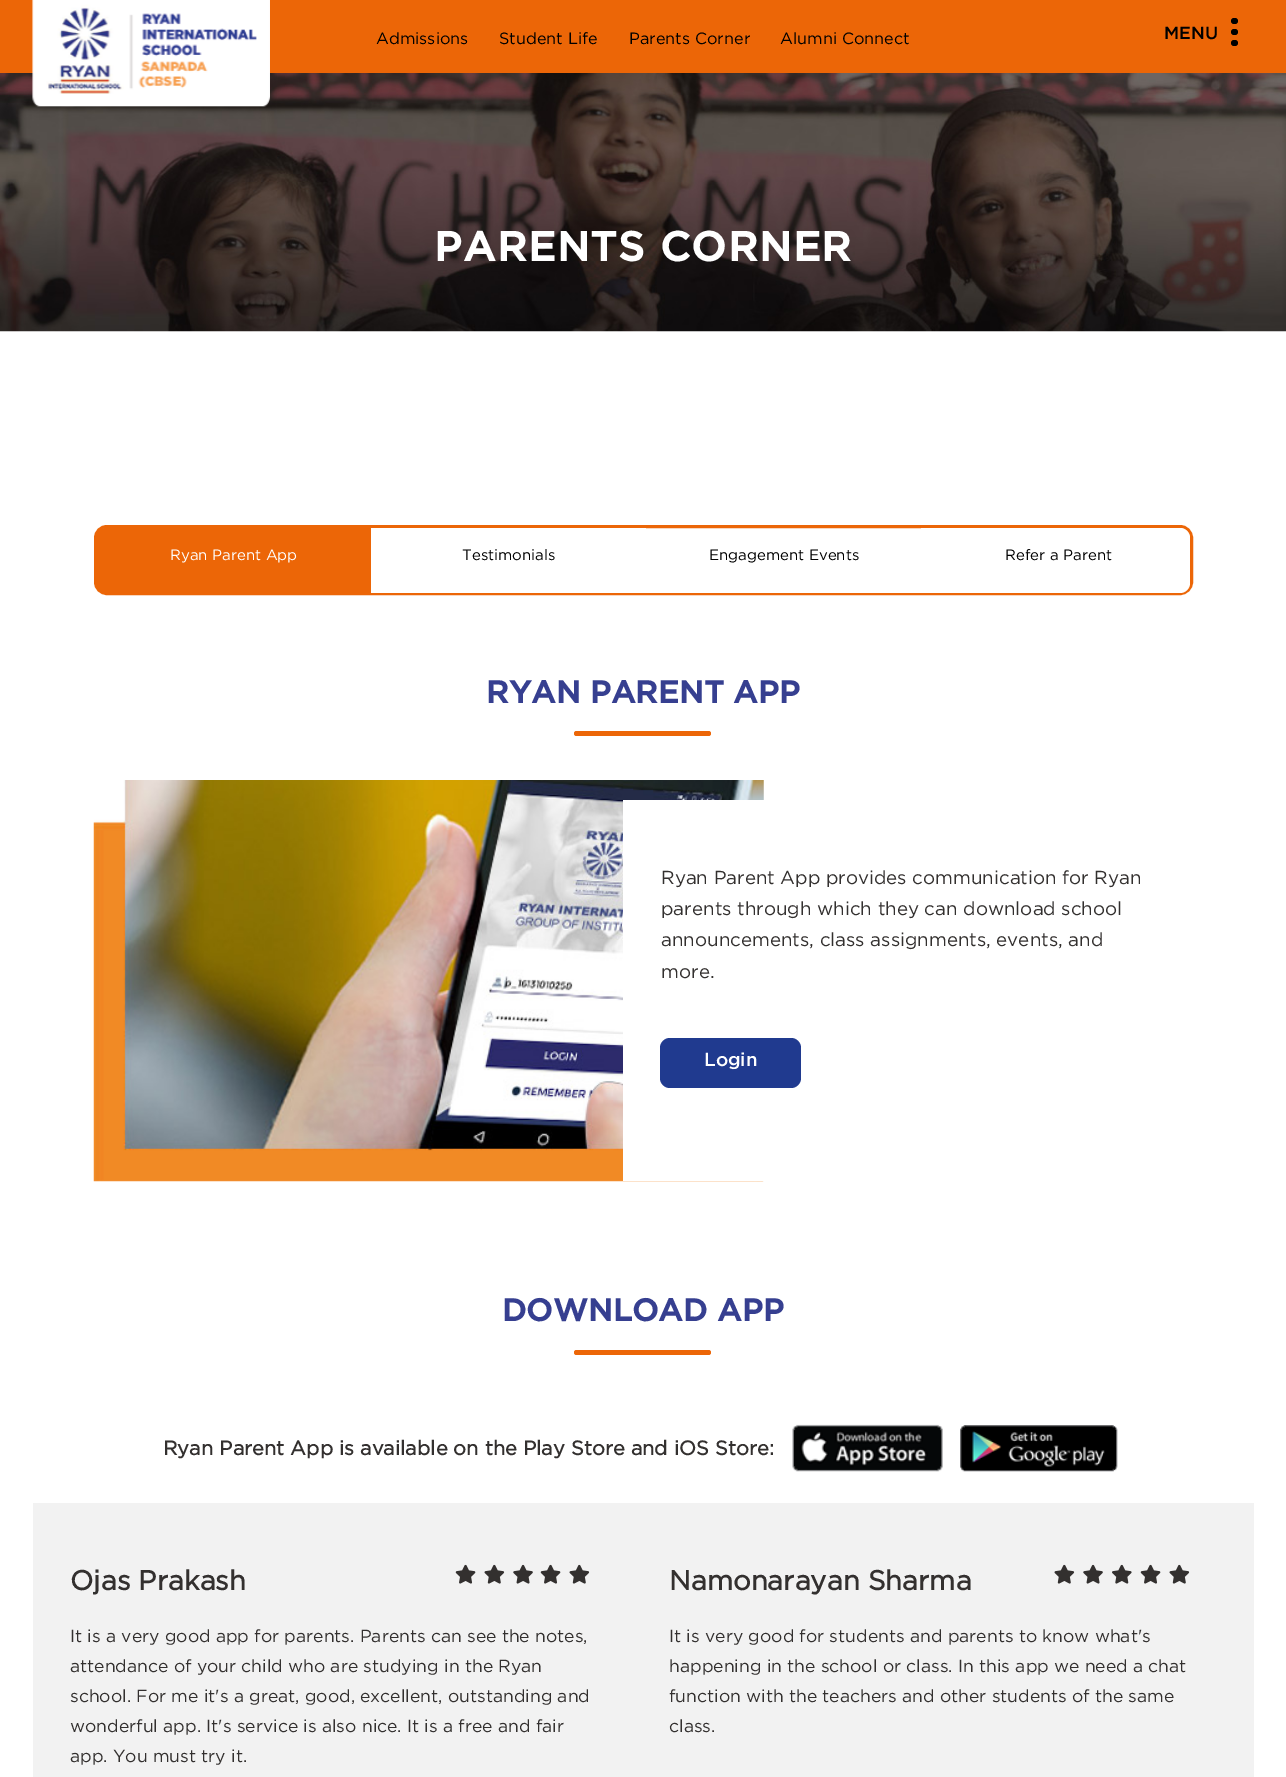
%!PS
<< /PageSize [1286 1777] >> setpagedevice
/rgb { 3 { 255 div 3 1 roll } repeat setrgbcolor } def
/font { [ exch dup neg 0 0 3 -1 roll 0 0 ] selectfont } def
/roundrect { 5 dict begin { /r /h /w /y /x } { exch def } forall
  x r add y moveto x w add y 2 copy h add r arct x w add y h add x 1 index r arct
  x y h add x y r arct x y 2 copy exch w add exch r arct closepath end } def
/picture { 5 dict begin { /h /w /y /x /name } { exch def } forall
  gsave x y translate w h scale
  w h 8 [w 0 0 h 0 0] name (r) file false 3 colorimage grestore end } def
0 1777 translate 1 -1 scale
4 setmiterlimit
255 255 255 rgb
0 0 1286 1777 rectfill
236 102 7 rgb
0 0 1286 73 rectfill
(img/2.rgb) 0 73 1286 259 picture
(img/1.rgb) 32 0 238 107 picture
0 0 0 rgb
1231 18 7 6 3 roundrect fill
1231 29 7 6 3 roundrect fill
1231 40 7 6 3 roundrect fill
236 102 7 rgb
3 setlinewidth
95.5 526.5 1096 67 11.5 roundrect stroke
106 528 moveto 374 528 lineto 374 593 lineto 106 593 lineto 100.5 593 96 588.5 96 583 curveto 96 538 lineto 96 532.5 100.5 528 106 528 curveto closepath fill
255 255 255 rgb
371 528 275 65 rectfill
646 592 275 1 rectfill
921 528 moveto 1180 528 lineto 1185.5 528 1190 532.5 1190 538 curveto 1190 583 lineto 1190 588.5 1185.5 593 1180 593 curveto 921 593 lineto closepath fill
236 102 7 rgb
574 731 137 5 2.5 roundrect fill
(img/3.rgb) 93 780 671 402 picture
255 255 255 rgb
623 800 141 381 rectfill
32 58 143 rgb
660 1038 141 50 10 roundrect fill
236 102 7 rgb
574 1350 137 5 2.5 roundrect fill
(img/4.rgb) 792 1424 151 48 picture
(img/5.rgb) 960 1425 158 47 picture
242 242 242 rgb
33 1503 1221 274 rectfill
(img/6.rgb) 455 1564 21 20 picture
(img/7.rgb) 484 1564 21 20 picture
(img/8.rgb) 513 1564 20 20 picture
(img/6.rgb) 540 1564 21 20 picture
(img/7.rgb) 569 1564 21 20 picture
(img/7.rgb) 1054 1564 21 20 picture
(img/8.rgb) 1083 1564 20 20 picture
(img/9.rgb) 1112 1564 20 20 picture
(img/6.rgb) 1140 1564 21 20 picture
(img/7.rgb) 1169 1564 21 20 picture
/Gotham-Regular 16.25 font
0 0 0 rgb
[
  [(Admissions) 376 44]
  [(Student Life) 499 44]
  [(Parents Corner) 629 44]
  [(Alumni Connect) 780 44]
] { aload pop moveto show } forall
/Gotham-Medium 17.5 font
1164 39 moveto (MENU) show
/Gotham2-Bold 41.25 font
255 255 255 rgb
434 261 moveto 1.25 0 (PARENTS CORNER) ashow
/Gotham-Regular 15 font
170 560 moveto (Ryan Parent App) show
0 0 0 rgb
[
  [(Testimonials) 462 560]
  [(Engagement Events) 709 560]
  [(Refer a Parent) 1005 560]
] { aload pop moveto show } forall
/Gotham2-Bold 31.25 font
54 63 144 rgb
486 703 moveto (RYAN PARENT APP) show
/Gotham-Regular 18.75 font
51 48 47 rgb
[
  [(Ryan Parent App provides communication for Ryan) 661 884]
  [(parents through which they can download school) 661 915]
  [(announcements, class assignments, events, and) 661 946]
  [(more.) 661 978]
] { aload pop moveto show } forall
/Gotham-Medium 18.75 font
255 255 255 rgb
704 1066 moveto (Login) show
/Gotham2-Bold 31.25 font
54 63 144 rgb
502 1321 moveto (DOWNLOAD APP) show
/Gotham-Bold 20 font
51 48 47 rgb
163 1455 moveto (Ryan Parent App is available on the Play Store and iOS Store:) show
/Gotham-Bold 27.5 font
70 1590 moveto (Ojas Prakash) show
/Gotham-Regular 17.5 font
[
  [(It is a very good app for parents. Parents can see the notes,) 70 1642]
  [(attendance of your child who are studying in the Ryan) 70 1672]
  [(school. For me it's a great, good, excellent, outstanding and) 70 1702]
  [(wonderful app. It's service is also nice. It is a free and fair) 70 1732]
  [(app. You must try it.) 70 1762]
] { aload pop moveto show } forall
/Gotham-Bold 27.5 font
669 1590 moveto (Namonarayan Sharma) show
/Gotham-Regular 17.5 font
[
  [(It is very good for students and parents to know what's) 669 1642]
  [(happening in the school or class. In this app we need a chat) 669 1672]
  [(function with the teachers and other students of the same) 669 1702]
  [(class.) 669 1732]
] { aload pop moveto show } forall
showpage
